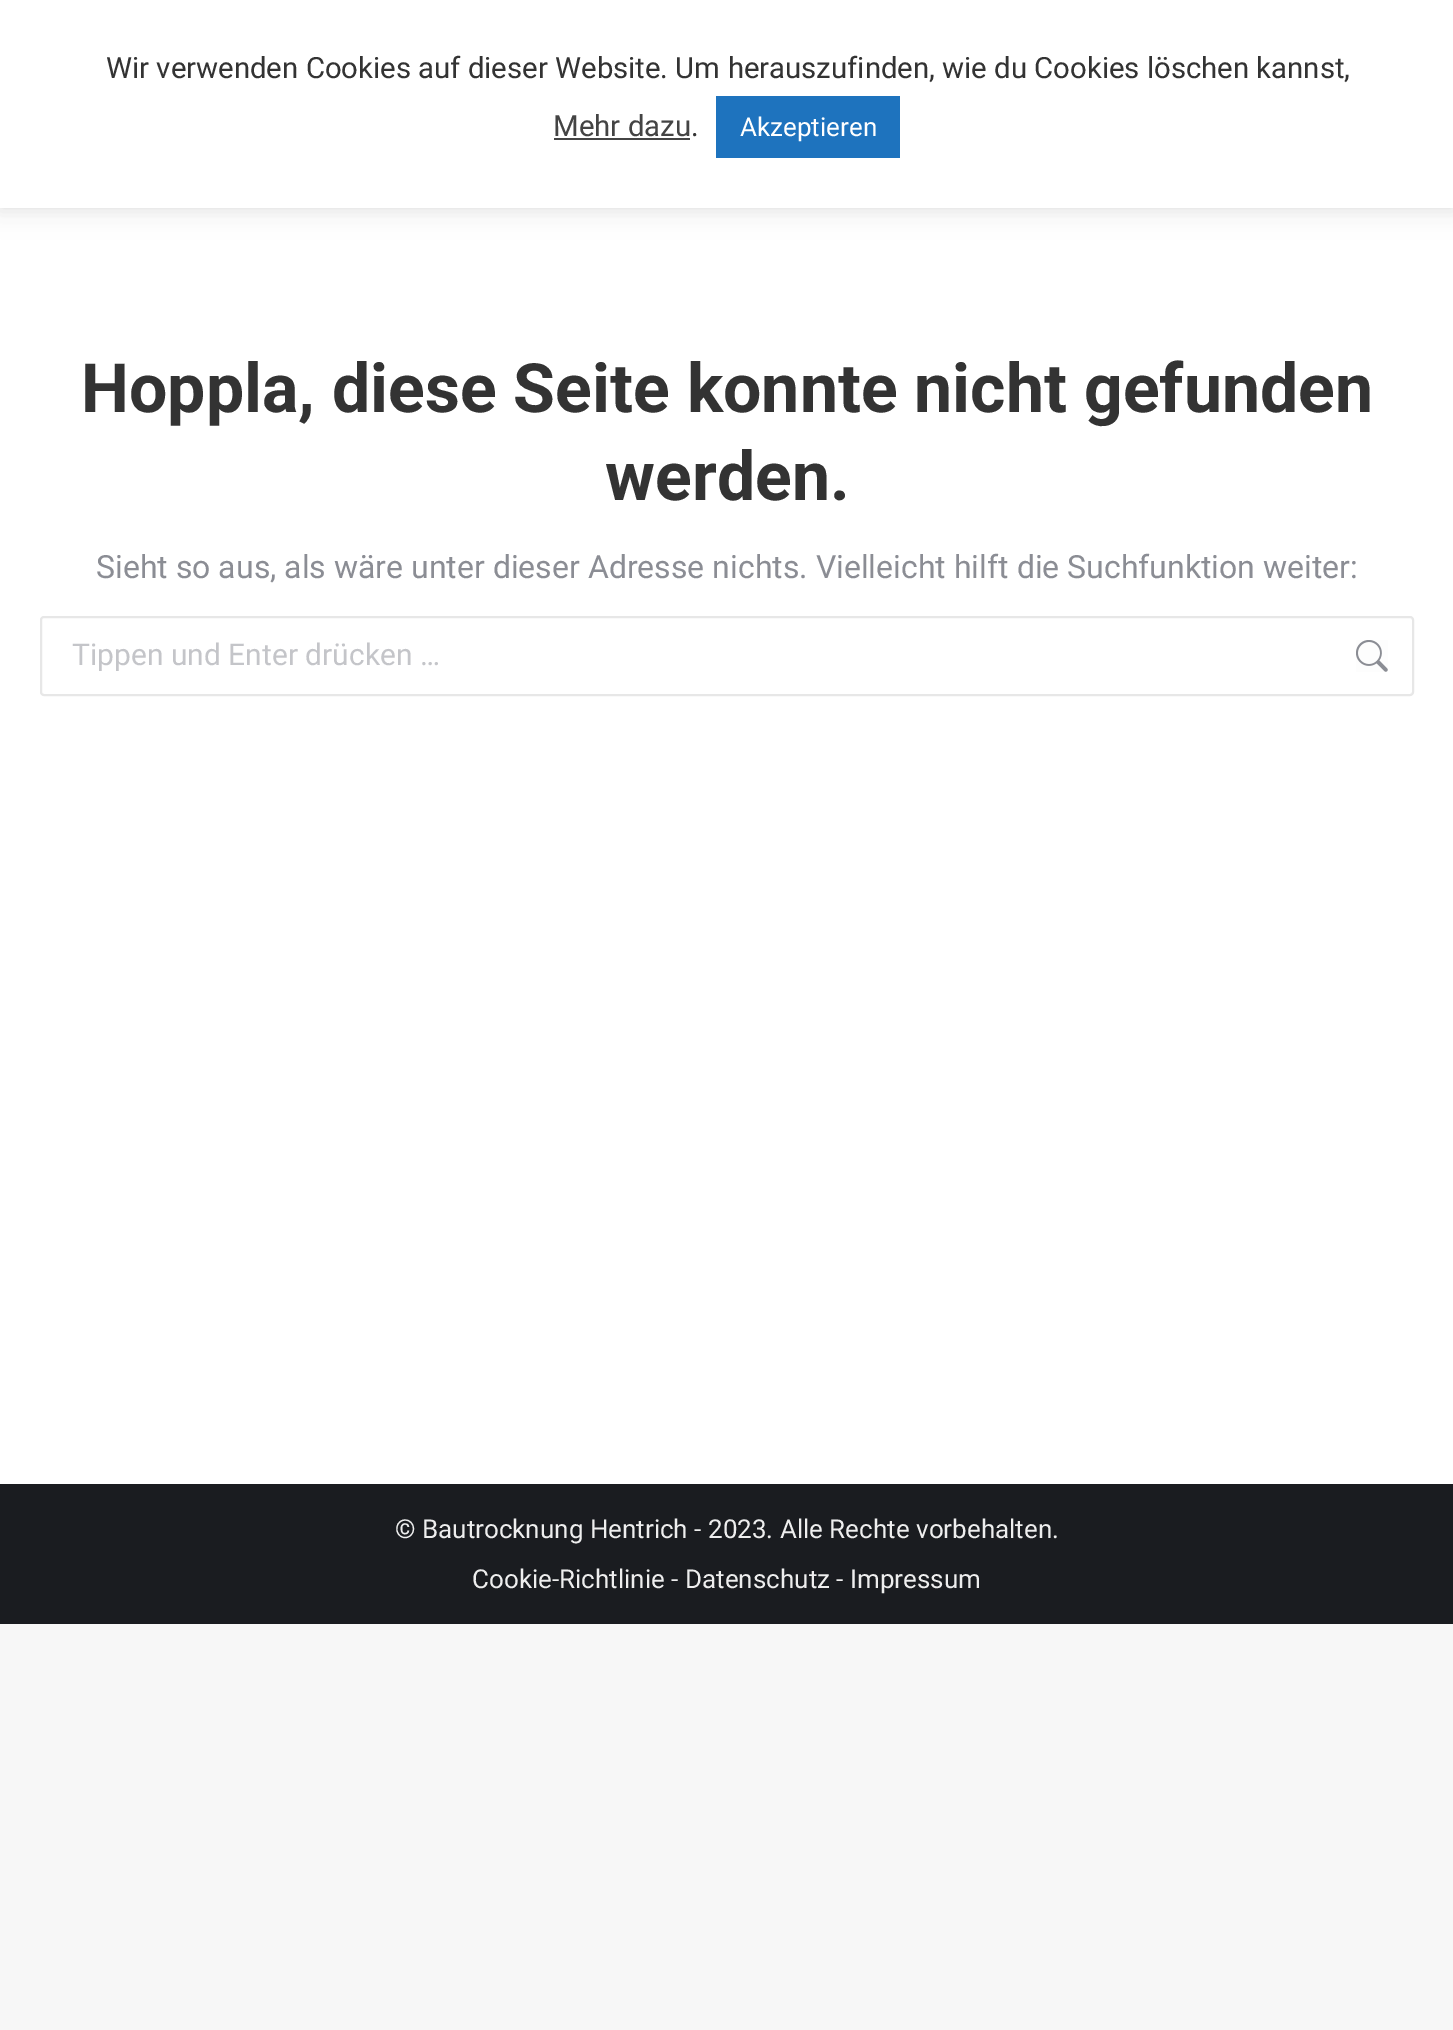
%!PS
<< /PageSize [1453 2030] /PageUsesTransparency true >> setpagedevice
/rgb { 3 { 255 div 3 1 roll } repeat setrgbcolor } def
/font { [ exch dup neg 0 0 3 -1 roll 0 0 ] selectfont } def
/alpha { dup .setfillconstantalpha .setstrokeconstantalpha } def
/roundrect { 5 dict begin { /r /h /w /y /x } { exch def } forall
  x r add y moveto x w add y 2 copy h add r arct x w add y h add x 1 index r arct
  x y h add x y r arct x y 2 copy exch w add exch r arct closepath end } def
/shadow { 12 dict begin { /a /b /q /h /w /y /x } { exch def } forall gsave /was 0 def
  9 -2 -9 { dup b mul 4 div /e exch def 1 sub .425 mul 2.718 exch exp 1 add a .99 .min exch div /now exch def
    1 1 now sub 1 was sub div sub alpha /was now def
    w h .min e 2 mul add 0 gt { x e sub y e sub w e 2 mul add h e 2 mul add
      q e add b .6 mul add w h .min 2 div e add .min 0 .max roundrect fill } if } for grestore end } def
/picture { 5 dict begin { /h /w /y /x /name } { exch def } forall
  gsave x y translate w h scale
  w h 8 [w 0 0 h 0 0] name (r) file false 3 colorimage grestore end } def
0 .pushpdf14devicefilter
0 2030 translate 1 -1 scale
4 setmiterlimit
247 247 247 rgb
0 0 1453 2030 rectfill
255 255 255 rgb
0 208 1453 1276 rectfill
172 171 171 rgb
0 -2 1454 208 0 10 0.3 shadow
0 0 0 rgb
-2 -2 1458 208 0 15 0.07 shadow
[
  [0 0 1453 208 255 255 255]
  [554 138 136 2 68 68 68]
  [716 96 184 62 30 115 190]
] { aload pop rgb rectfill } forall
231 231 231 rgb
2 setlinewidth
41 617 1372 78 3 roundrect stroke
(img/1.rgb) 1356 640 32 32 picture
26 28 32 rgb
0 1484 1453 140 rectfill
/Roboto-Regular 29.35 font
51 51 51 rgb
106 78 moveto (Wir verwenden Cookies auf dieser Website. Um herauszufinden, wie du Cookies löschen kannst,) show
68 68 68 rgb
553 136 moveto (Mehr dazu) show
51 51 51 rgb
691 136 moveto (.) show
/Roboto-Regular 26 font
255 255 255 rgb
740 136 moveto (Akzeptieren) show
/Roboto-Bold 68 font
51 51 51 rgb
81 412 moveto (Hoppla, diese Seite konnte nicht gefunden) show
605 500 moveto (werden.) show
/Roboto-Regular 32 font
139 141 148 rgb
96 578 moveto (Sieht so aus, als wäre unter dieser Adresse nichts. Vielleicht hilft die Suchfunktion weiter:) show
/Roboto-Regular 30 font
196 197 201 rgb
72 665 moveto (Tippen und Enter drücken …) show
/Roboto-Regular 26 font
238 238 238 rgb
395 1538 moveto (© Bautrocknung Hentrich - 2023. Alle Rechte vorbehalten.) show
472 1588 moveto (Cookie-Richtlinie - Datenschutz - Impressum) show
.poppdf14devicefilter showpage
